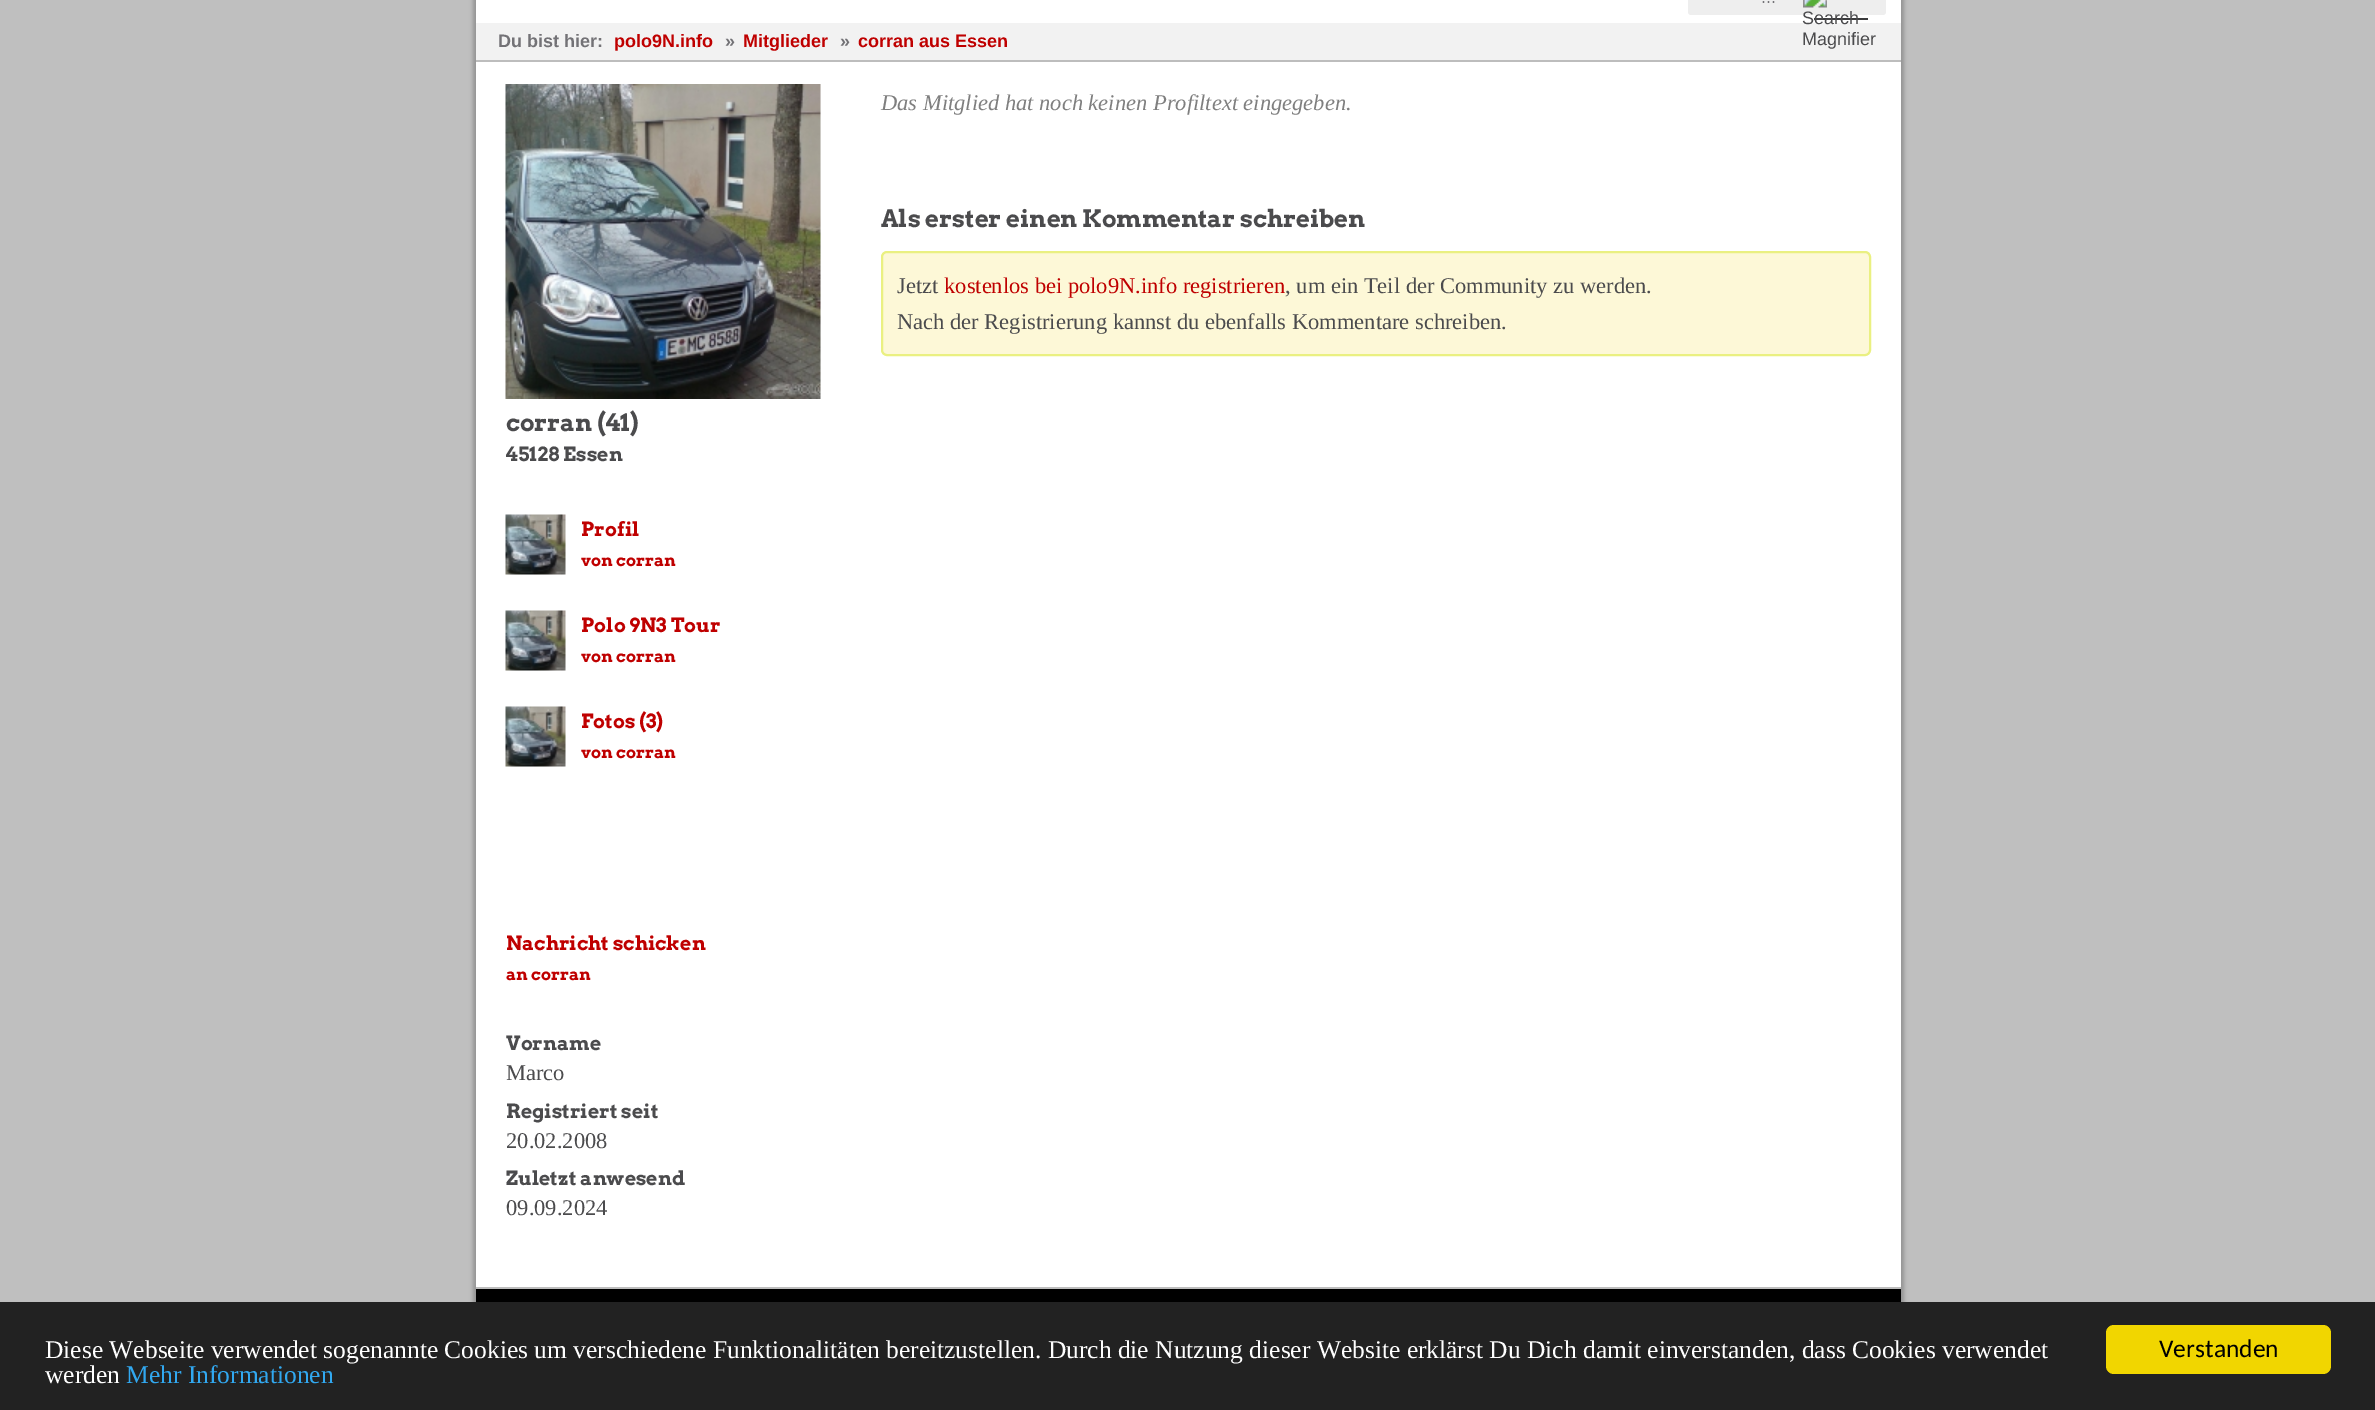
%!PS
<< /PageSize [2375 1410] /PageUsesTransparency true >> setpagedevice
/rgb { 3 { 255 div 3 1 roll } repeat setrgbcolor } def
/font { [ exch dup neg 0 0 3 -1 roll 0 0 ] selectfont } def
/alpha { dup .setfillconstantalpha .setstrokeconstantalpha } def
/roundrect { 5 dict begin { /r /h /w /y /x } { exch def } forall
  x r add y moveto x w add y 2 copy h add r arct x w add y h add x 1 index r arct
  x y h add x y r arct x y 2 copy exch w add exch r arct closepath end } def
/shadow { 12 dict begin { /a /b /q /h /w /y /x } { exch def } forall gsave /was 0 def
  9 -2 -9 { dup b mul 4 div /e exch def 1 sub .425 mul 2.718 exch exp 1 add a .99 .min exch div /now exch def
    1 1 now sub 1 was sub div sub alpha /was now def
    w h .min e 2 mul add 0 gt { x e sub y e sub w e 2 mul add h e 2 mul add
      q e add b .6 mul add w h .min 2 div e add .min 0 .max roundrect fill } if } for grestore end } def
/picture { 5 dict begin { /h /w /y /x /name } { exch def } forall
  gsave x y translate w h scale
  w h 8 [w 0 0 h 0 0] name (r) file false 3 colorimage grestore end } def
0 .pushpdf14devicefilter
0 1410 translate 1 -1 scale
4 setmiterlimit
191 191 191 rgb
0 0 2375 1410 rectfill
147 147 147 rgb
473 -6 1425 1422 0 2 1 shadow
479 -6 1425 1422 0 2 1 shadow
255 255 255 rgb
476 0 1425 1287 rectfill
238 238 238 rgb
1688 -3 198 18 3 roundrect fill
(img/1.rgb) 1803 0 24 8 picture
[
  [1814 18 54 2 58 58 60]
  [476 23 1425 37 242 242 242]
  [476 60 1425 2 189 189 189]
] { aload pop rgb rectfill } forall
253 248 215 rgb
882 252 988 103 5 roundrect gsave fill grestore
234 240 129 rgb
2 setlinewidth
stroke
248 248 248 rgb
820 84 1 315 rectfill
(img/2.rgb) 505 84 316 315 picture
(img/3.rgb) 505 514 61 61 picture
(img/4.rgb) 505 610 61 61 picture
(img/4.rgb) 505 706 61 61 picture
[
  [476 1289 1425 13 0 0 0]
  [476 1287 1425 2 189 189 189]
  [0 1302 2375 108 34 34 34]
] { aload pop rgb rectfill } forall
241 214 0 rgb
2106 1325 225 49 8 roundrect fill
/LiberationSans-Regular 18 font
115 114 118 rgb
1761 3 moveto (...) show
75 75 77 rgb
1802 24 moveto (Search) show
1802 45 moveto (Magnifier) show
/LiberationSans-Bold 18 font
115 114 118 rgb
498 47 moveto (Du bist hier:) show
191 0 0 rgb
614 47 moveto (polo9N.info) show
115 114 118 rgb
725 47 moveto (») show
191 0 0 rgb
743 47 moveto (Mitglieder) show
115 114 118 rgb
840 47 moveto (») show
191 0 0 rgb
858 47 moveto (corran aus Essen) show
/LiberationSerif-Italic 22.5 font
127 127 127 rgb
881 110 moveto (Das Mitglied hat noch keinen Profiltext eingegeben.) show
/Arvo-Bold 24 font
75 75 77 rgb
881 227 moveto (Als erster einen Kommentar schreiben) show
/LiberationSerif-Regular 22.5 font
897 293 moveto (Jetzt) show
191 0 0 rgb
944 293 moveto (kostenlos bei polo9N.info registrieren) show
75 75 77 rgb
1285 293 moveto (, um ein Teil der Community zu werden.) show
897 329 moveto (Nach der Registrierung kannst du ebenfalls Kommentare schreiben.) show
/Arvo-Bold 24 font
506 431 moveto (corran \(41\)) show
/Arvo-Bold 19.5 font
506 461 moveto (45128 Essen) show
191 0 0 rgb
581 536 moveto (Profil) show
/Arvo-Bold 16.5 font
581 566 moveto (von corran) show
/Arvo-Bold 19.5 font
581 632 moveto (Polo 9N3 Tour) show
/Arvo-Bold 16.5 font
581 662 moveto (von corran) show
/Arvo-Bold 19.5 font
581 728 moveto (Fotos \(3\)) show
/Arvo-Bold 16.5 font
581 758 moveto (von corran) show
/Arvo-Bold 19.5 font
506 950 moveto (Nachricht schicken) show
/Arvo-Bold 16.5 font
506 980 moveto (an corran) show
/Arvo-Bold 19.5 font
75 75 77 rgb
506 1050 moveto (Vorname) show
/LiberationSerif-Regular 22.5 font
506 1080 moveto (Marco) show
/Arvo-Bold 19.5 font
506 1118 moveto (Registriert seit) show
/LiberationSerif-Regular 22.5 font
506 1148 moveto (20.02.2008) show
/Arvo-Bold 19.5 font
506 1185 moveto (Zuletzt anwesend) show
/LiberationSerif-Regular 22.5 font
506 1215 moveto (09.09.2024) show
/LiberationSerif-Regular 25.5 font
255 255 255 rgb
45 1358 moveto (Diese Webseite verwendet sogenannte Cookies um verschiedene Funktionalitäten bereitzustellen. Durch die Nutzung dieser Website erklärst Du Dich damit einverstanden, dass Cookies verwendet) show
45 1383 moveto (werden) show
49 168 240 rgb
126 1383 moveto (Mehr Informationen) show
/Carlito-Regular 25.5 font
0 0 0 rgb
2159 1357 moveto (Verstanden) show
.poppdf14devicefilter showpage
